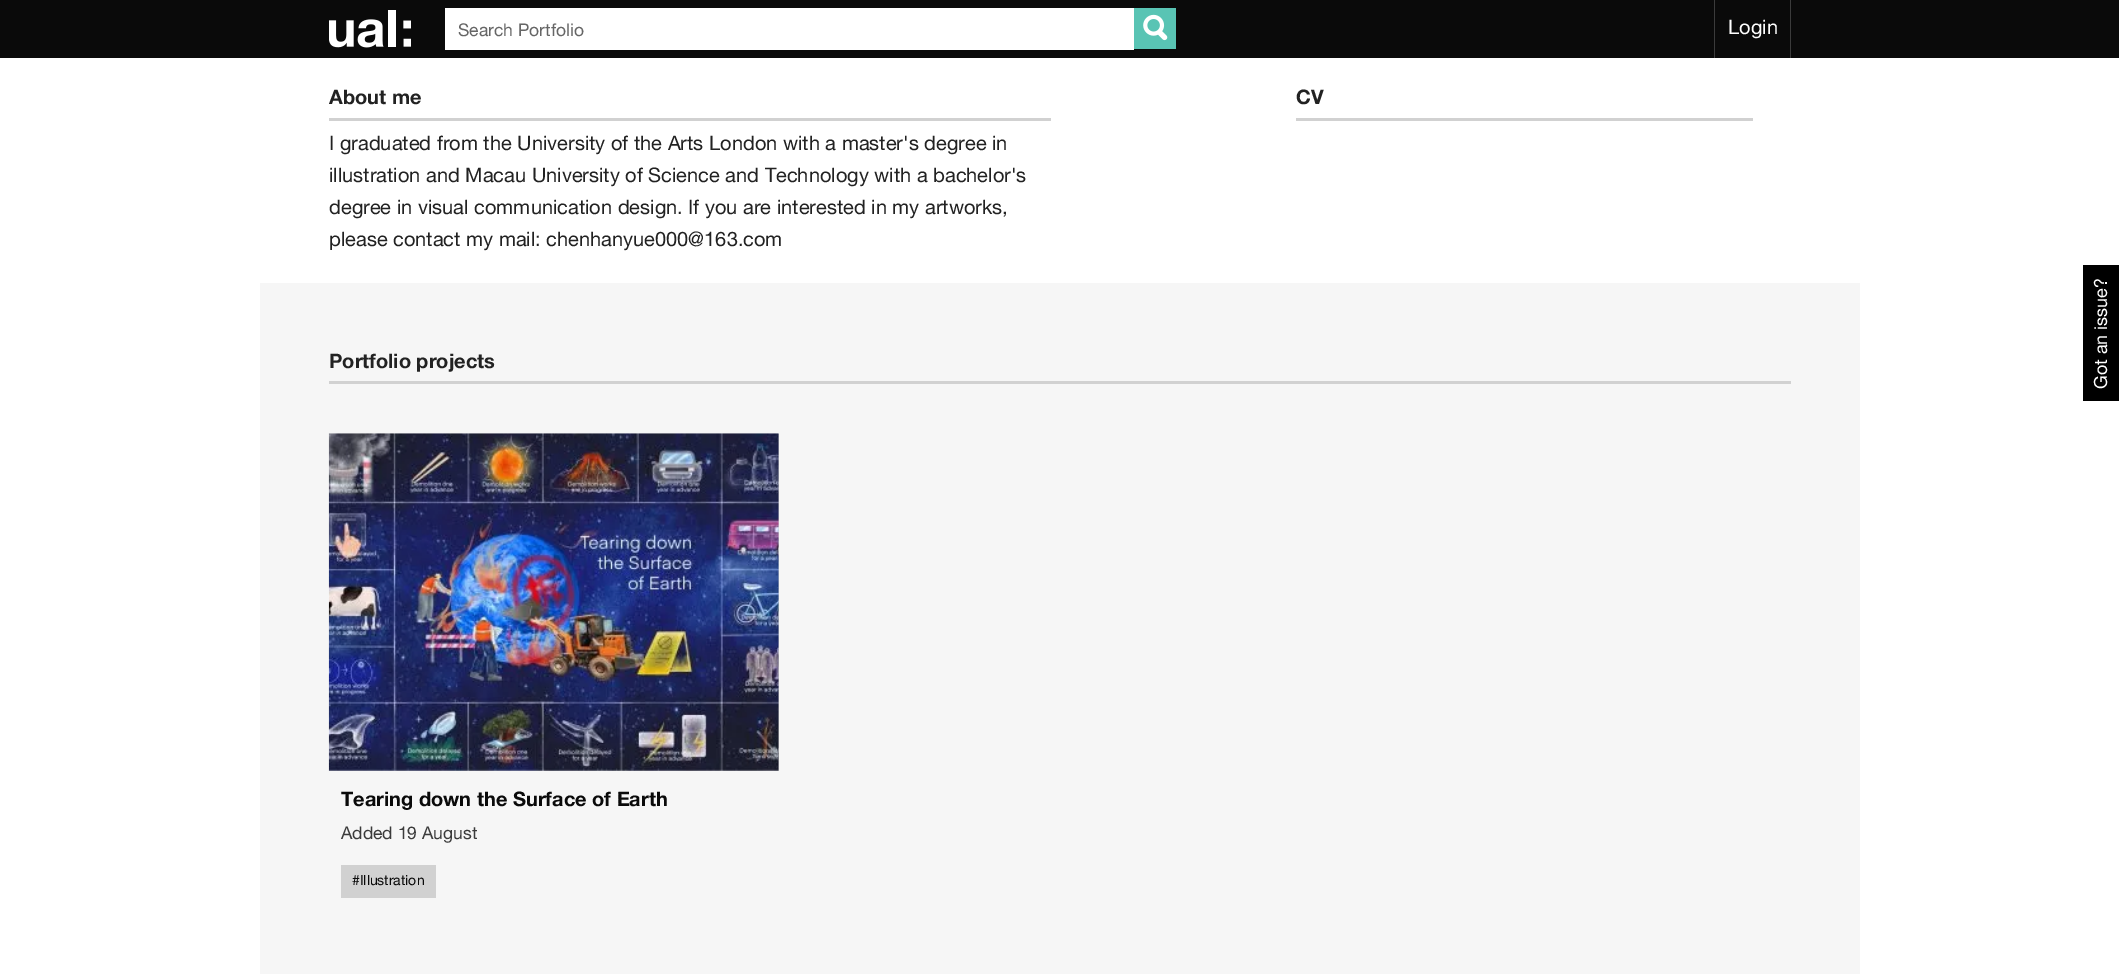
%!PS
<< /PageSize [2119 974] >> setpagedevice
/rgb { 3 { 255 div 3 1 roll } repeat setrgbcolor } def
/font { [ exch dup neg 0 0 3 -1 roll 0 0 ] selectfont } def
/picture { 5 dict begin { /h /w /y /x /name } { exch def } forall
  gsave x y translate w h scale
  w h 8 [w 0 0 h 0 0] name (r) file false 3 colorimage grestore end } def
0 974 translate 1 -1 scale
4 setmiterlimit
255 255 255 rgb
0 0 2119 974 rectfill
10 10 10 rgb
0 0 2119 58 rectfill
(img/1.rgb) 329 10 82 38 picture
255 255 255 rgb
445 8 689 42 rectfill
89 196 180 rgb
1134 8 42 41 rectfill
(img/2.rgb) 1143 14 25 27 picture
[
  [1790 0 1 58 59 59 59]
  [1714 0 1 58 59 59 59]
  [329 118 722 3 209 209 209]
  [1296 118 457 3 209 209 209]
  [260 283 1600 691 246 246 246]
  [329 381 1462 3 209 209 209]
  [329 434 450 337 209 209 209]
] { aload pop rgb rectfill } forall
(img/3.rgb) 328 433 451 338 picture
341 865 95 33 rectfill
0 0 0 rgb
2083 265 36 136 rectfill
/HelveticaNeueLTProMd-Regular 17.5 font
102 102 102 rgb
458 36 moveto (Search Portfolio) show
/HelveticaNeueLTProMd-Regular 20 font
255 255 255 rgb
1728 34 moveto (Login) show
/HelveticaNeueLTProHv-Regular 20 font
34 34 34 rgb
329 104 moveto (About me) show
/HelveticaNeueLTProMd-Regular 20 font
[
  [(I graduated from the University of the Arts London with a master's degree in) 329 150]
  [(illustration and Macau University of Science and Technology with a bachelor's) 329 182]
  [(degree in visual communication design. If you are interested in my artworks,) 329 214]
  [(please contact my mail: chenhanyue000@163.com) 329 246]
] { aload pop moveto show } forall
/HelveticaNeueLTProHv-Regular 20 font
1296 104 moveto (CV) show
329 368 moveto (Portfolio projects) show
10 10 10 rgb
341 806 moveto (Tearing down the Surface of Earth) show
/HelveticaNeueLTProMd-Regular 17.5 font
59 59 59 rgb
341 839 moveto (Added 19 August) show
/HelveticaNeueLTProMd-Regular 14 font
10 10 10 rgb
352 885 moveto (#Illustration) show
/HelveticaNeueLTProMd-Regular 18 font
255 255 255 rgb
gsave 2107 389 translate -90 rotate 0 0 moveto (Got an issue?) show grestore
showpage
